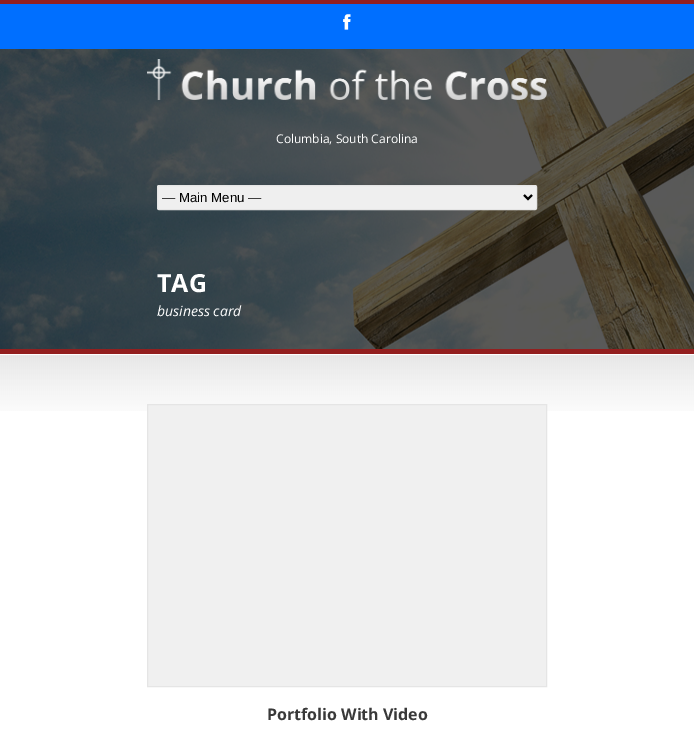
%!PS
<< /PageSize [694 731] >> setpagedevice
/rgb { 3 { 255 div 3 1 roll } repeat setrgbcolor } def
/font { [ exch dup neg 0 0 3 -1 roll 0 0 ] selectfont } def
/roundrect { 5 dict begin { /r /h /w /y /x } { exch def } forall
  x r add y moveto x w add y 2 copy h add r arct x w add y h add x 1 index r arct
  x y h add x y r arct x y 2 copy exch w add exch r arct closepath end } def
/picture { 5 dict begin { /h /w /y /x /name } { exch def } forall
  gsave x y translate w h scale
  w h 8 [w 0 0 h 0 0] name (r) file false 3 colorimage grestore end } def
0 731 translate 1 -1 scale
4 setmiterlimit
255 255 255 rgb
0 0 694 731 rectfill
0 111 255 rgb
0 4 694 45 rectfill
147 31 31 rgb
0 0 694 4 rectfill
(img/1.rgb) 343 14 8 16 picture
(img/2.rgb) 0 49 694 300 picture
(img/3.rgb) 147 59 400 41 picture
239 239 239 rgb
157.5 185.5 379 24 1.5 roundrect gsave fill grestore
229 229 229 rgb
stroke
0 0 0 rgb
2 setlinewidth
524 195 moveto 528 199 lineto 532 195 lineto stroke
147 31 31 rgb
0 349 694 5 rectfill
(img/4.rgb) 0 355 694 56 picture
240 240 240 rgb
147.5 404.5 moveto 546.5 404.5 lineto 546.5 686.5 lineto 147.5 686.5 lineto closepath gsave fill grestore
229 229 229 rgb
1 setlinewidth
stroke
/OpenSans-Regular 12 font
255 255 255 rgb
276 143 moveto (Columbia, South Carolina) show
/LiberationSans-Regular 13.25 font
0 0 0 rgb
162 202 moveto (— Main Menu —) show
/OpenSans-Bold 25 font
255 255 255 rgb
157 292 moveto (TAG) show
/OpenSans-Italic 14 font
157 316 moveto (business card) show
/OpenSans-Bold 16 font
57 57 57 rgb
267 720 moveto (Portfolio With Video) show
showpage
